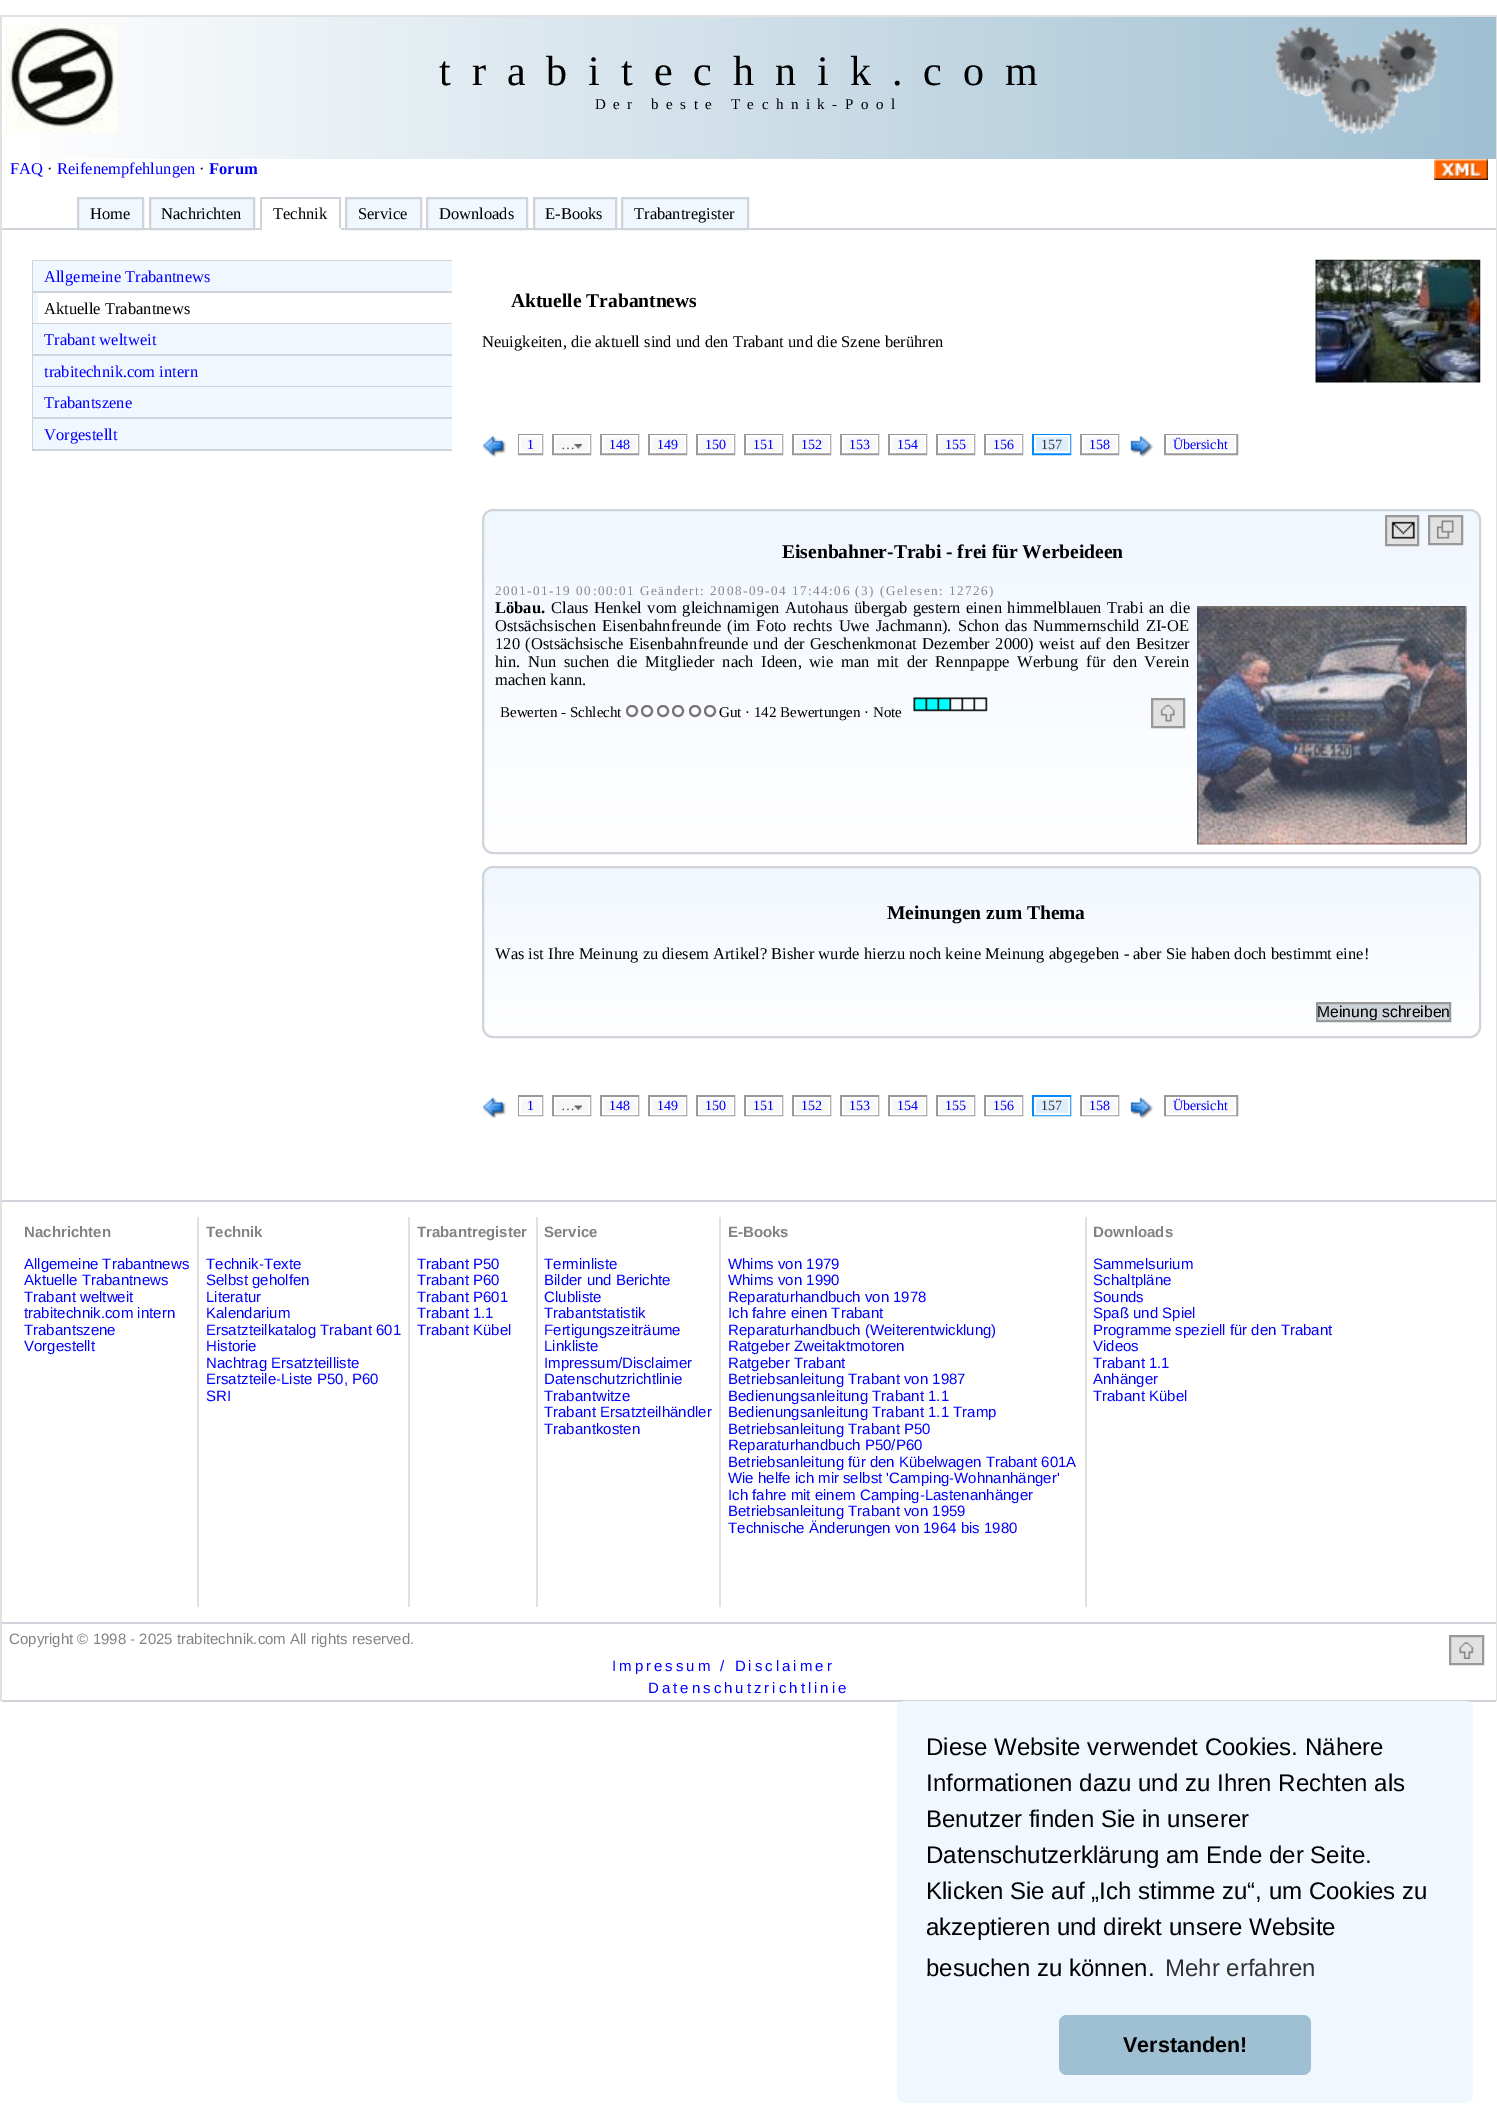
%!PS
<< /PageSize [1497 2127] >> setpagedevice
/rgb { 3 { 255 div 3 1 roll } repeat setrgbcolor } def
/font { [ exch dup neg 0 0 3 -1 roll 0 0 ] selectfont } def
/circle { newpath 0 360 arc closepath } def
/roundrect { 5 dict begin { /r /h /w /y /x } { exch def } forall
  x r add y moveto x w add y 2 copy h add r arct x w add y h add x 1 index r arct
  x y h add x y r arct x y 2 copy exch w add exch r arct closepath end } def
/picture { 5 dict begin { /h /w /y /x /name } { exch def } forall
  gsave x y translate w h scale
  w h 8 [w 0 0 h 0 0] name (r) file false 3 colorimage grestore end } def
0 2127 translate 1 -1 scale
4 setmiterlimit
255 255 255 rgb
0 0 1497 2127 rectfill
225 225 225 rgb
1496 15 1 1686 rectfill
0 15 2 1686 rectfill
gsave 40 17 moveto 1496 17 lineto 1496 159 lineto 40 159 lineto closepath clip newpath
<< /ShadingType 2 /ColorSpace /DeviceRGB /Coords [1.5 88 1496 88] /Extend [true true] /Function << /FunctionType 2 /Domain [0 1] /C0 [1 1 1] /C1 [0.624 0.749 0.824] /N 1 >> >> shfill grestore
2 15 1494 2 rectfill
(img/1.rgb) 6 25 111 109 picture
(img/2.rgb) 1274 26 164 108 picture
(img/3.rgb) 1434 159 54 21 picture
206 212 218 rgb
2 228 1494 2 rectfill
241 247 255 rgb
78 198 moveto 143 198 lineto 143 229 lineto 78 229 lineto closepath gsave fill grestore
206 212 218 rgb
2 setlinewidth
stroke
241 247 255 rgb
150 198 moveto 254 198 lineto 254 229 lineto 150 229 lineto closepath gsave fill grestore
206 212 218 rgb
stroke
[
  [260 197 81 2 206 212 218]
  [339 197 2 33 206 212 218]
  [260 228 81 2 255 255 255]
  [260 197 2 33 206 212 218]
] { aload pop rgb rectfill } forall
241 247 255 rgb
346 198 moveto 421 198 lineto 421 229 lineto 346 229 lineto closepath gsave fill grestore
206 212 218 rgb
stroke
241 247 255 rgb
427 198 moveto 527 198 lineto 527 229 lineto 427 229 lineto closepath gsave fill grestore
206 212 218 rgb
stroke
241 247 255 rgb
534 198 moveto 616 198 lineto 616 229 lineto 534 229 lineto closepath gsave fill grestore
206 212 218 rgb
stroke
241 247 255 rgb
622 198 moveto 748 198 lineto 748 229 lineto 622 229 lineto closepath gsave fill grestore
206 212 218 rgb
stroke
[
  [32 260 420 1 206 212 218]
  [32 291 420 2 206 212 218]
  [32 261 2 32 206 212 218]
  [33 261 419 30 241 247 255]
  [32 323 420 1 206 212 218]
  [32 293 2 31 206 212 218]
  [33 293 5 30 241 247 255]
  [32 354 420 2 206 212 218]
  [32 324 2 32 206 212 218]
  [33 324 419 30 241 247 255]
  [32 386 420 1 206 212 218]
  [32 356 2 31 206 212 218]
  [33 356 419 30 241 247 255]
  [32 417 420 2 206 212 218]
  [32 387 2 32 206 212 218]
  [33 387 419 30 241 247 255]
  [32 449 420 2 206 212 218]
  [32 419 2 31 206 212 218]
  [33 419 419 30 241 247 255]
] { aload pop rgb rectfill } forall
(img/4.rgb) 1315 259 166 124 picture
(img/5.rgb) 483 436 23 22 picture
153 153 153 rgb
519 435 23 19 rectstroke
247 247 247 rgb
520 436 moveto 541 436 lineto 541 452 lineto 520 452 lineto closepath gsave fill grestore
255 255 255 rgb
stroke
153 153 153 rgb
553 435 37 19 rectstroke
247 247 247 rgb
555 436 moveto 589 436 lineto 589 452 lineto 555 452 lineto closepath gsave fill grestore
255 255 255 rgb
stroke
(img/6.rgb) 574 444 8 5 picture
153 153 153 rgb
601 435 37 19 rectstroke
247 247 247 rgb
603 436 moveto 637 436 lineto 637 452 lineto 603 452 lineto closepath gsave fill grestore
255 255 255 rgb
stroke
153 153 153 rgb
649 435 37 19 rectstroke
247 247 247 rgb
651 436 moveto 685 436 lineto 685 452 lineto 651 452 lineto closepath gsave fill grestore
255 255 255 rgb
stroke
153 153 153 rgb
697 435 37 19 rectstroke
247 247 247 rgb
699 436 moveto 733 436 lineto 733 452 lineto 699 452 lineto closepath gsave fill grestore
255 255 255 rgb
stroke
153 153 153 rgb
745 435 37 19 rectstroke
247 247 247 rgb
747 436 moveto 781 436 lineto 781 452 lineto 747 452 lineto closepath gsave fill grestore
255 255 255 rgb
stroke
153 153 153 rgb
793 435 37 19 rectstroke
247 247 247 rgb
795 436 moveto 829 436 lineto 829 452 lineto 795 452 lineto closepath gsave fill grestore
255 255 255 rgb
stroke
153 153 153 rgb
841 435 37 19 rectstroke
247 247 247 rgb
843 436 moveto 877 436 lineto 877 452 lineto 843 452 lineto closepath gsave fill grestore
255 255 255 rgb
stroke
153 153 153 rgb
889 435 37 19 rectstroke
247 247 247 rgb
891 436 moveto 925 436 lineto 925 452 lineto 891 452 lineto closepath gsave fill grestore
255 255 255 rgb
stroke
153 153 153 rgb
937 435 37 19 rectstroke
247 247 247 rgb
939 436 moveto 973 436 lineto 973 452 lineto 939 452 lineto closepath gsave fill grestore
255 255 255 rgb
stroke
153 153 153 rgb
985 435 37 19 rectstroke
247 247 247 rgb
987 436 moveto 1021 436 lineto 1021 452 lineto 987 452 lineto closepath gsave fill grestore
255 255 255 rgb
stroke
0 136 255 rgb
1033 435 37 19 rectstroke
221 238 255 rgb
1035 436 moveto 1069 436 lineto 1069 452 lineto 1035 452 lineto closepath gsave fill grestore
255 255 255 rgb
stroke
153 153 153 rgb
1081 435 37 19 rectstroke
247 247 247 rgb
1083 436 moveto 1117 436 lineto 1117 452 lineto 1083 452 lineto closepath gsave fill grestore
255 255 255 rgb
stroke
(img/7.rgb) 1130 436 24 22 picture
153 153 153 rgb
1165 435 72 19 rectstroke
247 247 247 rgb
1167 436 moveto 1235 436 lineto 1235 452 lineto 1167 452 lineto closepath gsave fill grestore
255 255 255 rgb
stroke
gsave
482 509 999 345 11 roundrect clip newpath
gsave 482 510 moveto 1481 510 lineto 1481 852 lineto 482 852 lineto closepath clip newpath
<< /ShadingType 2 /ColorSpace /DeviceRGB /Coords [483 510 483 852] /Extend [true true] /Function << /FunctionType 2 /Domain [0 1] /C0 [0.945 0.969 1] /C1 [1 1 1] /N 1 >> >> shfill grestore
grestore
206 212 218 rgb
483 510 997 343 10 roundrect stroke
225 225 225 rgb
1386 516 moveto 1418 516 lineto 1418 545 lineto 1386 545 lineto closepath gsave fill grestore
153 153 153 rgb
stroke
(img/8.rgb) 1391 521 24 18 picture
225 225 225 rgb
1429 516 moveto 1462 516 lineto 1462 544 lineto 1429 544 lineto closepath gsave fill grestore
153 153 153 rgb
stroke
(img/9.rgb) 1437 520 17 19 picture
241 247 255 rgb
1197 844 270 1 rectfill
(img/10.rgb) 1197 606 270 239 picture
255 255 255 rgb
632 711 5 circle gsave fill grestore
118 118 118 rgb
stroke
255 255 255 rgb
647 711 5 circle gsave fill grestore
118 118 118 rgb
stroke
255 255 255 rgb
663 711 5 circle gsave fill grestore
118 118 118 rgb
stroke
255 255 255 rgb
678 711 5 circle gsave fill grestore
118 118 118 rgb
stroke
255 255 255 rgb
695 711 5 circle gsave fill grestore
118 118 118 rgb
stroke
255 255 255 rgb
710 711 5 circle gsave fill grestore
118 118 118 rgb
stroke
(img/11.rgb) 913 697 75 15 picture
225 225 225 rgb
1152 699 moveto 1184 699 lineto 1184 727 lineto 1152 727 lineto closepath gsave fill grestore
153 153 153 rgb
stroke
(img/12.rgb) 1160 704 15 18 picture
gsave
482 866 999 172 11 roundrect clip newpath
gsave 482 867 moveto 1481 867 lineto 1481 1037 lineto 482 1037 lineto closepath clip newpath
<< /ShadingType 2 /ColorSpace /DeviceRGB /Coords [483 867 483 1037] /Extend [true true] /Function << /FunctionType 2 /Domain [0 1] /C0 [0.945 0.969 1] /C1 [1 1 1] /N 1 >> >> shfill grestore
grestore
206 212 218 rgb
483 867 997 170 10 roundrect stroke
1317 1003 moveto 1450 1003 lineto 1450 1021 lineto 1317 1021 lineto closepath gsave fill grestore
153 153 153 rgb
stroke
(img/13.rgb) 483 1097 23 22 picture
519 1096 23 19 rectstroke
247 247 247 rgb
520 1098 moveto 541 1098 lineto 541 1114 lineto 520 1114 lineto closepath gsave fill grestore
255 255 255 rgb
stroke
153 153 153 rgb
553 1096 37 19 rectstroke
247 247 247 rgb
555 1098 moveto 589 1098 lineto 589 1114 lineto 555 1114 lineto closepath gsave fill grestore
255 255 255 rgb
stroke
(img/14.rgb) 574 1105 8 5 picture
153 153 153 rgb
601 1096 37 19 rectstroke
247 247 247 rgb
603 1098 moveto 637 1098 lineto 637 1114 lineto 603 1114 lineto closepath gsave fill grestore
255 255 255 rgb
stroke
153 153 153 rgb
649 1096 37 19 rectstroke
247 247 247 rgb
651 1098 moveto 685 1098 lineto 685 1114 lineto 651 1114 lineto closepath gsave fill grestore
255 255 255 rgb
stroke
153 153 153 rgb
697 1096 37 19 rectstroke
247 247 247 rgb
699 1098 moveto 733 1098 lineto 733 1114 lineto 699 1114 lineto closepath gsave fill grestore
255 255 255 rgb
stroke
153 153 153 rgb
745 1096 37 19 rectstroke
247 247 247 rgb
747 1098 moveto 781 1098 lineto 781 1114 lineto 747 1114 lineto closepath gsave fill grestore
255 255 255 rgb
stroke
153 153 153 rgb
793 1096 37 19 rectstroke
247 247 247 rgb
795 1098 moveto 829 1098 lineto 829 1114 lineto 795 1114 lineto closepath gsave fill grestore
255 255 255 rgb
stroke
153 153 153 rgb
841 1096 37 19 rectstroke
247 247 247 rgb
843 1098 moveto 877 1098 lineto 877 1114 lineto 843 1114 lineto closepath gsave fill grestore
255 255 255 rgb
stroke
153 153 153 rgb
889 1096 37 19 rectstroke
247 247 247 rgb
891 1098 moveto 925 1098 lineto 925 1114 lineto 891 1114 lineto closepath gsave fill grestore
255 255 255 rgb
stroke
153 153 153 rgb
937 1096 37 19 rectstroke
247 247 247 rgb
939 1098 moveto 973 1098 lineto 973 1114 lineto 939 1114 lineto closepath gsave fill grestore
255 255 255 rgb
stroke
153 153 153 rgb
985 1096 37 19 rectstroke
247 247 247 rgb
987 1098 moveto 1021 1098 lineto 1021 1114 lineto 987 1114 lineto closepath gsave fill grestore
255 255 255 rgb
stroke
0 136 255 rgb
1033 1096 37 19 rectstroke
221 238 255 rgb
1035 1098 moveto 1069 1098 lineto 1069 1114 lineto 1035 1114 lineto closepath gsave fill grestore
255 255 255 rgb
stroke
153 153 153 rgb
1081 1096 37 19 rectstroke
247 247 247 rgb
1083 1098 moveto 1117 1098 lineto 1117 1114 lineto 1083 1114 lineto closepath gsave fill grestore
255 255 255 rgb
stroke
(img/15.rgb) 1130 1097 24 22 picture
153 153 153 rgb
1165 1096 72 19 rectstroke
247 247 247 rgb
1167 1098 moveto 1235 1098 lineto 1235 1114 lineto 1167 1114 lineto closepath gsave fill grestore
255 255 255 rgb
stroke
[
  [2 1200 1494 2 206 212 218]
  [197 1217 2 390 225 225 225]
  [408 1217 2 390 225 225 225]
  [536 1217 2 390 225 225 225]
  [719 1217 2 390 225 225 225]
  [1085 1217 2 390 225 225 225]
  [2 1622 1494 2 206 212 218]
  [2 1700 1494 2 206 212 218]
] { aload pop rgb rectfill } forall
225 225 225 rgb
1450 1636 moveto 1483 1636 lineto 1483 1664 lineto 1450 1664 lineto closepath gsave fill grestore
153 153 153 rgb
stroke
(img/16.rgb) 1459 1642 15 17 picture
241 247 255 rgb
897 1701 576 402 8 roundrect fill
159 191 210 rgb
1059 2015 252 60 8 roundrect fill
/LiberationSerif-Regular 42 font
0 0 0 rgb
439 85 moveto 21 0 (trabitechnik.com) ashow
/LiberationSerif-Regular 15 font
595 109 moveto 7.5 0 (Der beste Technik-Pool) ashow
/LiberationSerif-Regular 16.5 font
0 0 255 rgb
10 174 moveto (FAQ) show
0 0 0 rgb
47 174 moveto (·) show
0 0 255 rgb
57 174 moveto (Reifenempfehlungen) show
0 0 0 rgb
199 174 moveto (·) show
/LiberationSerif-Bold 16.5 font
0 0 255 rgb
209 174 moveto (Forum) show
/LiberationSerif-Regular 16.5 font
0 0 0 rgb
[
  [(Home) 90 219]
  [(Nachrichten) 161 219]
  [(Technik) 273 219]
  [(Service) 358 219]
  [(Downloads) 439 219]
  [(E-Books) 545 219]
  [(Trabantregister) 634 219]
] { aload pop moveto show } forall
0 0 255 rgb
44 282 moveto (Allgemeine Trabantnews) show
0 0 0 rgb
44 314 moveto (Aktuelle Trabantnews) show
0 0 255 rgb
[
  [(Trabant weltweit) 44 345]
  [(trabitechnik.com intern) 44 377]
  [(Trabantszene) 44 408]
  [(Vorgestellt) 44 440]
] { aload pop moveto show } forall
/LiberationSerif-Bold 19.5 font
0 0 0 rgb
511 307 moveto (Aktuelle Trabantnews) show
/LiberationSerif-Regular 16.5 font
482 347 moveto (Neuigkeiten, die aktuell sind und den Trabant und die Szene berühren) show
/LiberationSerif-Regular 14 font
0 0 255 rgb
527 449 moveto (1) show
85 85 85 rgb
561 449 moveto (…) show
0 0 255 rgb
[
  [(148) 609 449]
  [(149) 657 449]
  [(150) 705 449]
  [(151) 753 449]
  [(152) 801 449]
  [(153) 849 449]
  [(154) 897 449]
  [(155) 945 449]
  [(156) 993 449]
] { aload pop moveto show } forall
51 51 51 rgb
1041 449 moveto (157) show
0 0 255 rgb
1089 449 moveto (158) show
1173 449 moveto (Übersicht) show
/LiberationSerif-Bold 19.5 font
0 0 0 rgb
782 558 moveto (Eisenbahner-Trabi - frei für Werbeideen) show
/LiberationSerif-Regular 13.2 font
136 136 136 rgb
495 595 moveto 1.5 0 (2001-01-19 00:00:01 Geändert: 2008-09-04 17:44:06 \(3\) \(Gelesen: 12726\)) ashow
/LiberationSerif-Bold 16.5 font
0 0 0 rgb
495 613 moveto (Löbau.) show
/LiberationSerif-Regular 16.5 font
551 613 moveto 1.5 0 32 (Claus Henkel vom gleichnamigen Autohaus übergab gestern einen himmelblauen Trabi an die) widthshow
495 631 moveto 2.1 0 32 (Ostsächsischen Eisenbahnfreunde \(im Foto rechts Uwe Jachmann\). Schon das Nummernschild ZI-OE) widthshow
495 649 moveto 1.4 0 32 (120 \(Ostsächsische Eisenbahnfreunde und der Geschenkmonat Dezember 2000\) weist auf den Besitzer) widthshow
495 667 moveto 3.5 0 32 (hin. Nun suchen die Mitglieder nach Ideen, wie man mit der Rennpappe Werbung für den Verein) widthshow
495 685 moveto (machen kann.) show
/LiberationSerif-Regular 15 font
500 717 moveto (Bewerten - Schlecht) show
719 717 moveto (Gut · 142 Bewertungen · Note) show
/LiberationSerif-Bold 19.5 font
887 919 moveto (Meinungen zum Thema) show
/LiberationSerif-Regular 16.5 font
495 959 moveto (Was ist Ihre Meinung zu diesem Artikel? Bisher wurde hierzu noch keine Meinung abgegeben - aber Sie haben doch bestimmt eine!) show
gsave
1317 1004 132 16 rectclip
/LiberationSans-Regular 15.75 font
1317 1017 moveto (Meinung schreiben) show
grestore
/LiberationSerif-Regular 14 font
0 0 255 rgb
527 1110 moveto (1) show
85 85 85 rgb
561 1110 moveto (…) show
0 0 255 rgb
[
  [(148) 609 1110]
  [(149) 657 1110]
  [(150) 705 1110]
  [(151) 753 1110]
  [(152) 801 1110]
  [(153) 849 1110]
  [(154) 897 1110]
  [(155) 945 1110]
  [(156) 993 1110]
] { aload pop moveto show } forall
51 51 51 rgb
1041 1110 moveto (157) show
0 0 255 rgb
1089 1110 moveto (158) show
1173 1110 moveto (Übersicht) show
/LiberationSans-Bold 15 font
130 130 130 rgb
24 1237 moveto (Nachrichten) show
/LiberationSans-Regular 15 font
0 0 255 rgb
[
  [(Allgemeine Trabantnews) 24 1269]
  [(Aktuelle Trabantnews) 24 1285]
  [(Trabant weltweit) 24 1302]
  [(trabitechnik.com intern) 24 1318]
  [(Trabantszene) 24 1335]
  [(Vorgestellt) 24 1351]
] { aload pop moveto show } forall
/LiberationSans-Bold 15 font
130 130 130 rgb
206 1237 moveto (Technik) show
/LiberationSans-Regular 15 font
0 0 255 rgb
[
  [(Technik-Texte) 206 1269]
  [(Selbst geholfen) 206 1285]
  [(Literatur) 206 1302]
  [(Kalendarium) 206 1318]
  [(Ersatzteilkatalog Trabant 601) 206 1335]
  [(Historie) 206 1351]
  [(Nachtrag Ersatzteilliste) 206 1368]
  [(Ersatzteile-Liste P50, P60) 206 1384]
  [(SRI) 206 1401]
] { aload pop moveto show } forall
/LiberationSans-Bold 15 font
130 130 130 rgb
417 1237 moveto (Trabantregister) show
/LiberationSans-Regular 15 font
0 0 255 rgb
[
  [(Trabant P50) 417 1269]
  [(Trabant P60) 417 1285]
  [(Trabant P601) 417 1302]
  [(Trabant 1.1) 417 1318]
  [(Trabant Kübel) 417 1335]
] { aload pop moveto show } forall
/LiberationSans-Bold 15 font
130 130 130 rgb
544 1237 moveto (Service) show
/LiberationSans-Regular 15 font
0 0 255 rgb
[
  [(Terminliste) 544 1269]
  [(Bilder und Berichte) 544 1285]
  [(Clubliste) 544 1302]
  [(Trabantstatistik) 544 1318]
  [(Fertigungszeiträume) 544 1335]
  [(Linkliste) 544 1351]
  [(Impressum/Disclaimer) 544 1368]
  [(Datenschutzrichtlinie) 544 1384]
  [(Trabantwitze) 544 1401]
  [(Trabant Ersatzteilhändler) 544 1417]
  [(Trabantkosten) 544 1434]
] { aload pop moveto show } forall
/LiberationSans-Bold 15 font
130 130 130 rgb
728 1237 moveto (E-Books) show
/LiberationSans-Regular 15 font
0 0 255 rgb
[
  [(Whims von 1979) 728 1269]
  [(Whims von 1990) 728 1285]
  [(Reparaturhandbuch von 1978) 728 1302]
  [(Ich fahre einen Trabant) 728 1318]
  [(Reparaturhandbuch \(Weiterentwicklung\)) 728 1335]
  [(Ratgeber Zweitaktmotoren) 728 1351]
  [(Ratgeber Trabant) 728 1368]
  [(Betriebsanleitung Trabant von 1987) 728 1384]
  [(Bedienungsanleitung Trabant 1.1) 728 1401]
  [(Bedienungsanleitung Trabant 1.1 Tramp) 728 1417]
  [(Betriebsanleitung Trabant P50) 728 1434]
  [(Reparaturhandbuch P50/P60) 728 1450]
  [(Betriebsanleitung für den Kübelwagen Trabant 601A) 728 1467]
  [(Wie helfe ich mir selbst 'Camping-Wohnanhänger') 728 1483]
  [(Ich fahre mit einem Camping-Lastenanhänger) 728 1500]
  [(Betriebsanleitung Trabant von 1959) 728 1516]
  [(Technische Änderungen von 1964 bis 1980) 728 1533]
] { aload pop moveto show } forall
/LiberationSans-Bold 15 font
130 130 130 rgb
1093 1237 moveto (Downloads) show
/LiberationSans-Regular 15 font
0 0 255 rgb
[
  [(Sammelsurium) 1093 1269]
  [(Schaltpläne) 1093 1285]
  [(Sounds) 1093 1302]
  [(Spaß und Spiel) 1093 1318]
  [(Programme speziell für den Trabant) 1093 1335]
  [(Videos) 1093 1351]
  [(Trabant 1.1) 1093 1368]
  [(Anhänger) 1093 1384]
  [(Trabant Kübel) 1093 1401]
] { aload pop moveto show } forall
130 130 130 rgb
9 1644 moveto (Copyright © 1998 - 2025 trabitechnik.com All rights reserved.) show
0 0 255 rgb
612 1671 moveto 3 0 (Impressum / Disclaimer) ashow
648 1693 moveto 3 0 (Datenschutzrichtlinie) ashow
/LiberationSans-Regular 24 font
0 0 0 rgb
[
  [(Diese Website verwendet Cookies. Nähere) 926 1755]
  [(Informationen dazu und zu Ihren Rechten als) 926 1791]
  [(Benutzer finden Sie in unserer) 926 1827]
  [(Datenschutzerklärung am Ende der Seite.) 926 1863]
  [(Klicken Sie auf „Ich stimme zu“, um Cookies zu) 926 1899]
  [(akzeptieren und direkt unsere Website) 926 1935]
  [(besuchen zu können.) 926 1976]
] { aload pop moveto show } forall
51 51 51 rgb
1165 1976 moveto (Mehr erfahren) show
/LiberationSans-Bold 21.5 font
0 0 0 rgb
1123 2052 moveto (Verstanden!) show
showpage
